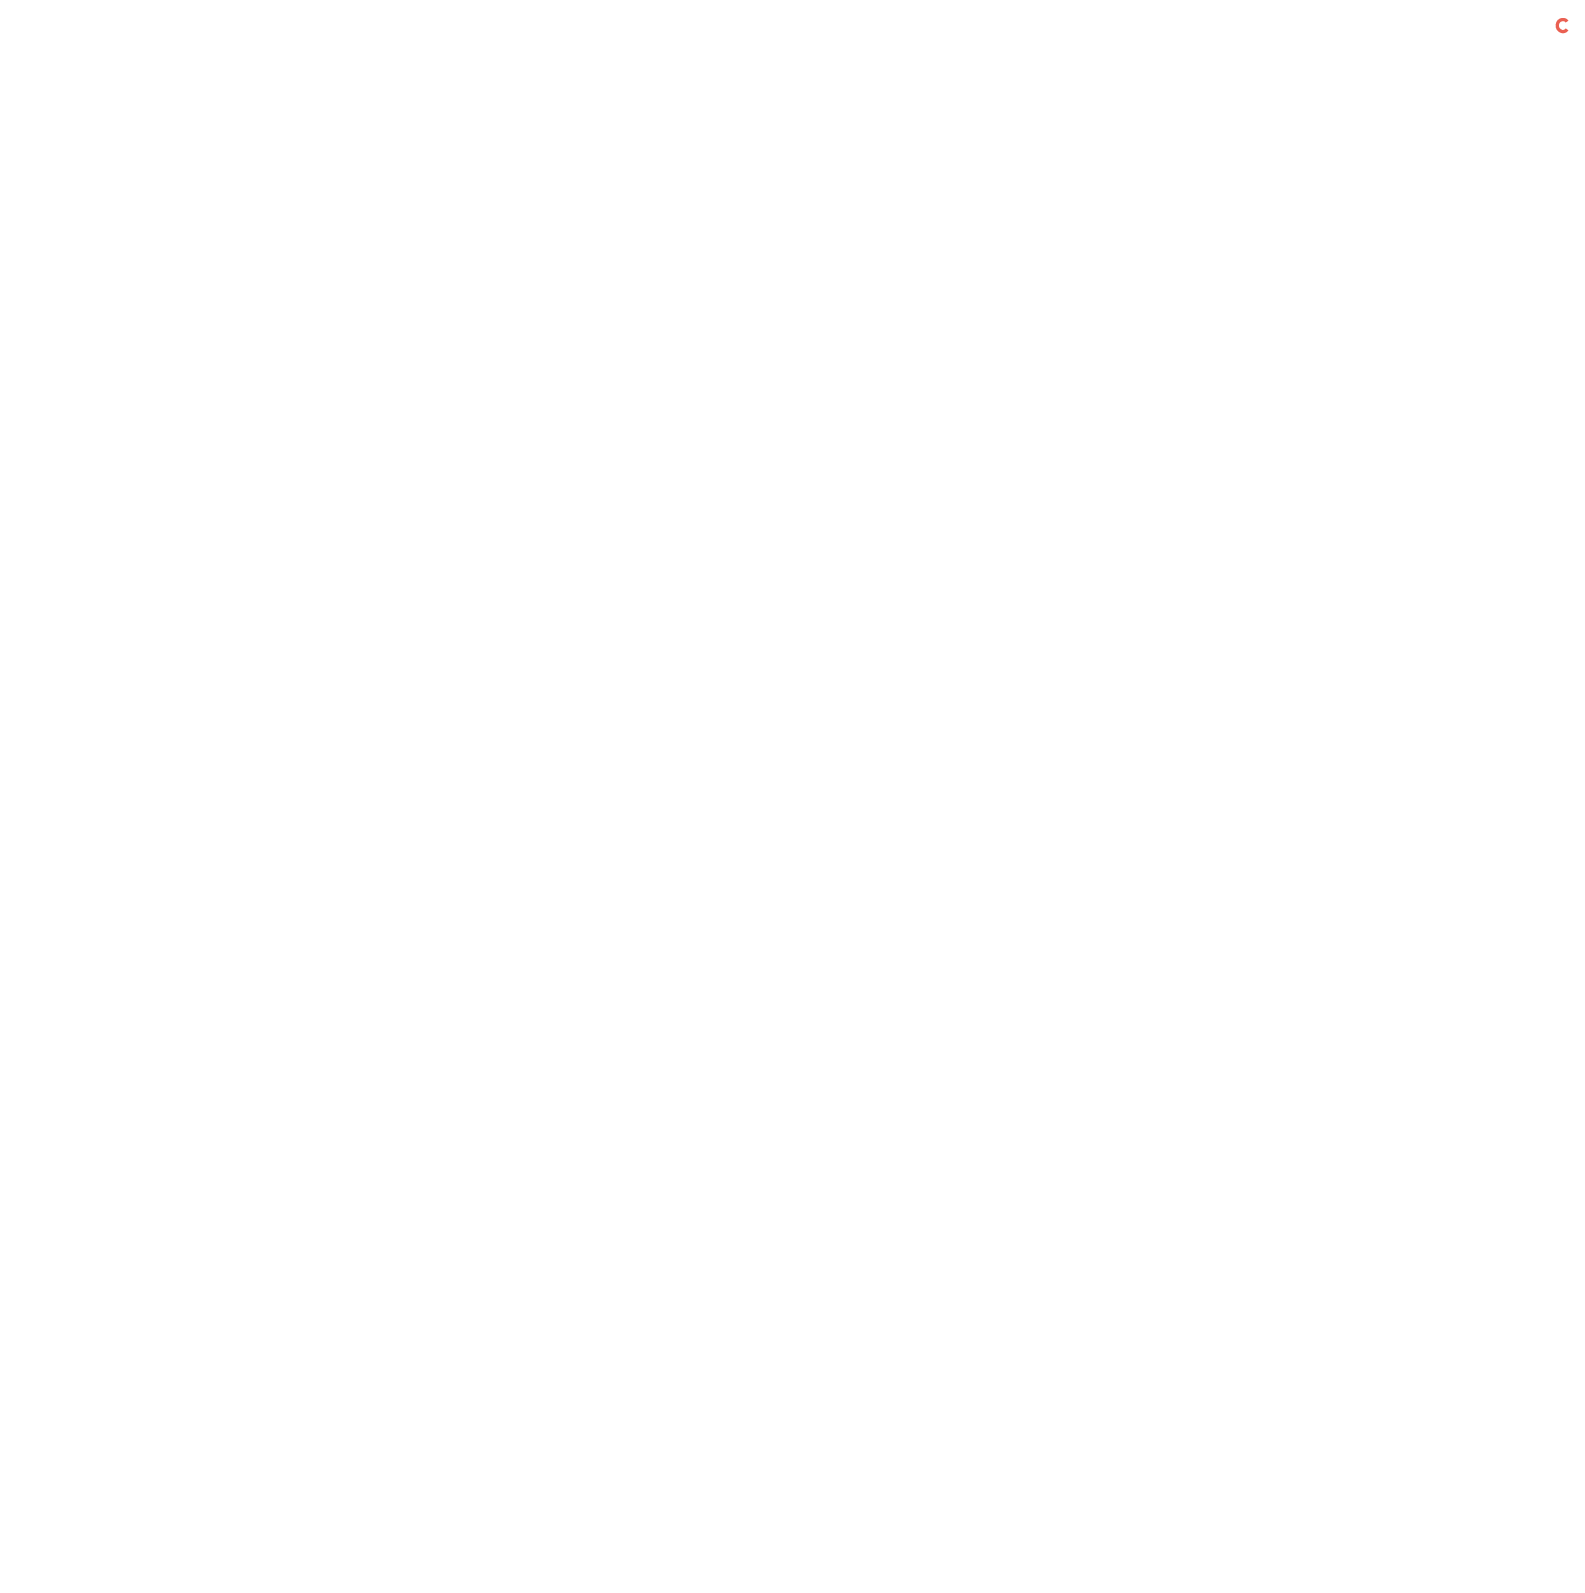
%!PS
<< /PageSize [1585 1593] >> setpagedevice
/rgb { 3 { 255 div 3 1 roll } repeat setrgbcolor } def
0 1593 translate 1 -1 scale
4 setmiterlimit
255 255 255 rgb
0 0 1585 1593 rectfill
234 96 82 rgb
3 setlinewidth
1567 29.5 moveto 1566 31 1564 32 1562 31.5 curveto 1555 30 1556 19.5 1563 19.5 curveto 1564.5 19.5 1566 20 1567 21.5 curveto stroke
showpage
